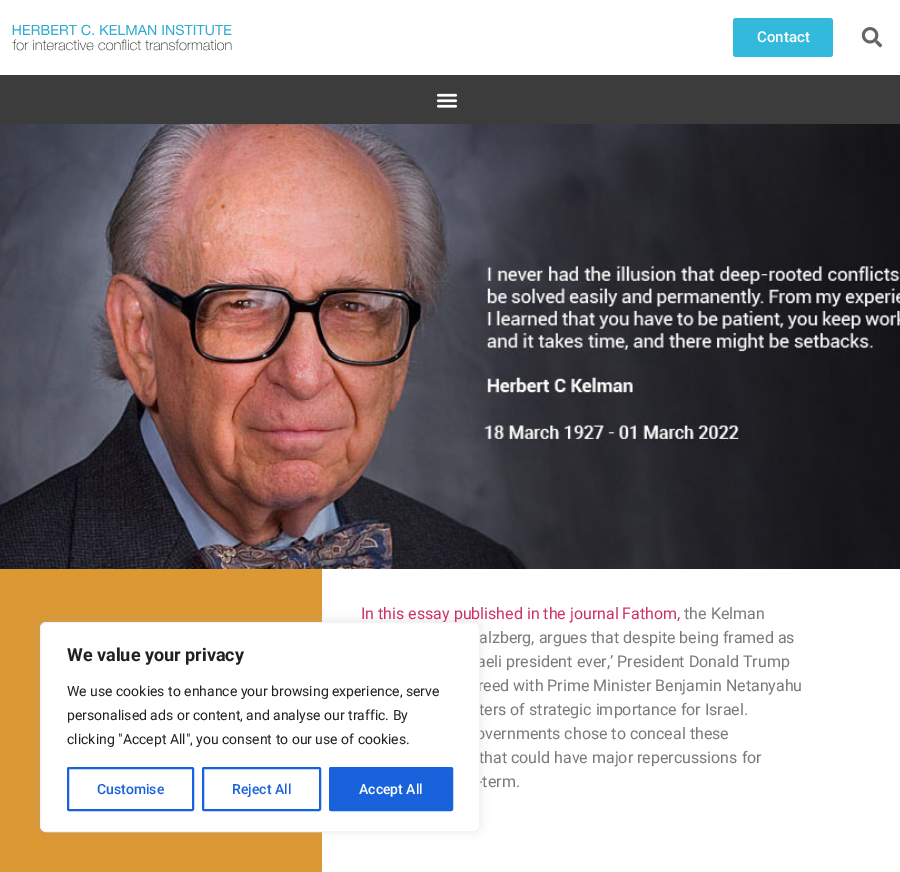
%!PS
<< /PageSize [900 872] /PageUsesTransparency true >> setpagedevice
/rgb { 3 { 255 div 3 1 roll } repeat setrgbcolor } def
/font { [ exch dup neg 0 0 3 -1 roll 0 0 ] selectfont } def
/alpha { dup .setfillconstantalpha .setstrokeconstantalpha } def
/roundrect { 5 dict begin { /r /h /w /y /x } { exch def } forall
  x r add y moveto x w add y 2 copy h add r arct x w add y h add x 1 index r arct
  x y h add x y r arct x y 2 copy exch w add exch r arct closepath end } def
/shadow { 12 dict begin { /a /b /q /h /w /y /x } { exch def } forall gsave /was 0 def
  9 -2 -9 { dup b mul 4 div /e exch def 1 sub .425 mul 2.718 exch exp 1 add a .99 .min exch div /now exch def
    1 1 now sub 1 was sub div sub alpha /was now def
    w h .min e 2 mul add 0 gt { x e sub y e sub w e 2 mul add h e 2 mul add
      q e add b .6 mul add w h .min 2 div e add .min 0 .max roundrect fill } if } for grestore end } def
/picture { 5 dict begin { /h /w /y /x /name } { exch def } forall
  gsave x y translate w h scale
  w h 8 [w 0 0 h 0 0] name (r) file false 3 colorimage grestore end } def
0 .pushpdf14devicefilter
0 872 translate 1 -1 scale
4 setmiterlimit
255 255 255 rgb
0 0 900 872 rectfill
(img/1.rgb) 12 24 220 27 picture
51 185 219 rgb
733 18 100 39 3 roundrect fill
(img/2.rgb) 861 27 22 21 picture
60 60 60 rgb
0 75 900 49 rectfill
(img/3.rgb) 436 93 22 15 picture
(img/4.rgb) 0 124 900 445 picture
219 152 51 rgb
0 569 322 303 rectfill
172 171 171 rgb
40 621 440 210 6 5 0.3 shadow
/Roboto-Medium 15 font
255 255 255 rgb
757 42 moveto (Contact) show
/Roboto-Regular 16 font
204 51 102 rgb
361 619 moveto (In this essay published in the journal Fathom,) show
122 122 122 rgb
[
  [(the Kelman) 684 619]
  [(alzberg, argues that despite being framed as) 479 643]
  [(aeli president ever,’ President Donald Trump) 477 667]
  [(reed with Prime Minister Benjamin Netanyahu) 478 691]
  [(ters of strategic importance for Israel.) 479 715]
  [(overnments chose to conceal these) 476 739]
  [(that could have major repercussions for) 479 763]
  [(-term.) 478 787]
] { aload pop moveto show } forall
255 255 255 rgb
40.5 622.5 439 209 5.5 roundrect gsave fill grestore
244 244 244 rgb
stroke
24 99 220 rgb
330 768 122 42 1 roundrect gsave fill grestore
2 setlinewidth
stroke
/Roboto-Medium 14 font
255 255 255 rgb
359 794 moveto (Accept All) show
24 99 220 rgb
203 768 117 42 1 roundrect stroke
232 794 moveto (Reject All) show
68 768 125 42 1 roundrect stroke
97 794 moveto (Customise) show
/Roboto-Regular 14 font
33 33 33 rgb
[
  [(clicking "Accept All", you consent to our use of cookies.) 67 744]
  [(personalised ads or content, and analyse our traffic. By) 67 720]
  [(We use cookies to enhance your browsing experience, serve) 67 696]
] { aload pop moveto show } forall
/Roboto-Bold 18 font
67 661 moveto (We value your privacy) show
.poppdf14devicefilter showpage
